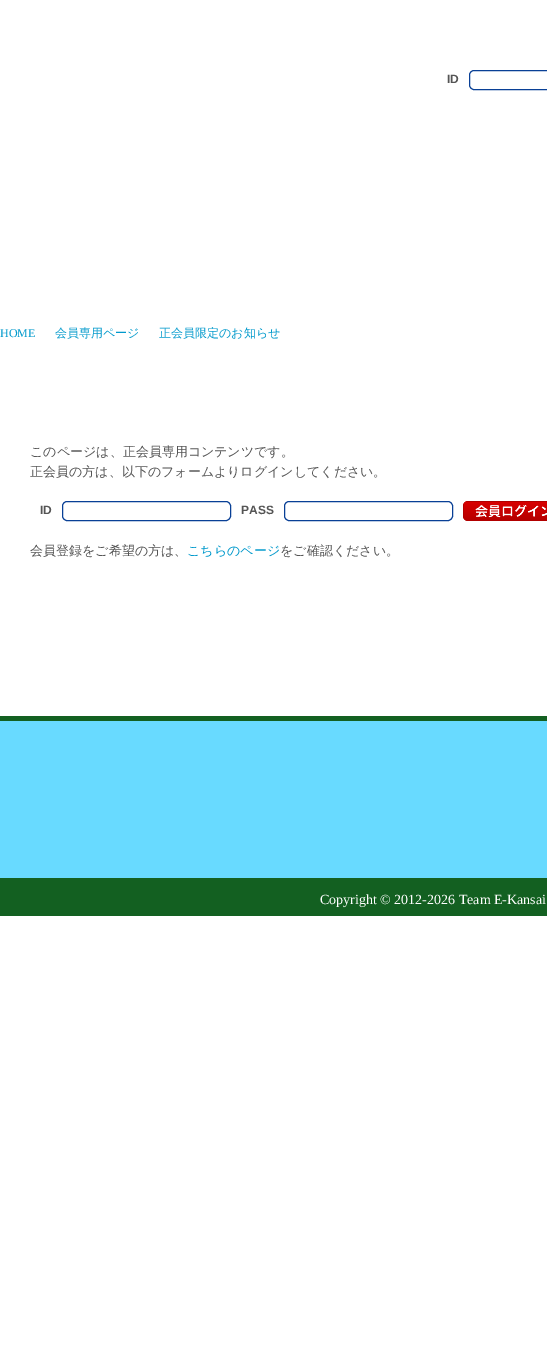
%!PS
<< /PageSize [547 1348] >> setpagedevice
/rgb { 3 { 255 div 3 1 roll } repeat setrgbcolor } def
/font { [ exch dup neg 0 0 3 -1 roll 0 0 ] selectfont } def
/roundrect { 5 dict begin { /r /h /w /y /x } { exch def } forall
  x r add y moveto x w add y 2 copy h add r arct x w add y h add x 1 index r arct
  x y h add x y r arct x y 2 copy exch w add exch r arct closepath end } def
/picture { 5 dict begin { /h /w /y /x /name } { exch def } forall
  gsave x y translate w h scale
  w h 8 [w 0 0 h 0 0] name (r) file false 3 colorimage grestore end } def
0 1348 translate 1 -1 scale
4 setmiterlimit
255 255 255 rgb
0 0 547 1348 rectfill
9 64 150 rgb
469.5 70.5 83 19 4.5 roundrect stroke
62.5 501.5 168 19 4.5 roundrect stroke
284.5 501.5 168 19 4.5 roundrect stroke
(img/1.rgb) 463 501 84 20 picture
(img/2.rgb) 0 716 547 200 picture
/LiberationSans-Bold 12 font
85 85 85 rgb
447 83 moveto (ID) show
/LiberationSerif-Regular 12 font
0 153 204 rgb
0 337 moveto (HOME) show
/WenQuanYiZenHei-Medium 12 font
55 337 moveto (会員専用ページ) show
159 337 moveto (正会員限定のお知らせ) show
/WenQuanYiZenHei-Medium 13 font
85 85 85 rgb
30 456 moveto (このページは、正会員専用コンテンツです。) show
30 476 moveto (正会員の方は、以下のフォームよりログインしてください。) show
/LiberationSans-Bold 12 font
40 514 moveto (ID) show
241 514 moveto (PASS) show
/WenQuanYiZenHei-Medium 13 font
30 555 moveto (会員登録をご希望の方は、) show
0 153 204 rgb
187 555 moveto (こちらのページ) show
85 85 85 rgb
280 555 moveto (をご確認ください。) show
/LiberationSerif-Regular 14 font
255 255 255 rgb
320 904 moveto (Copyright © 2012-2026 Team E-Kansai) show
showpage
